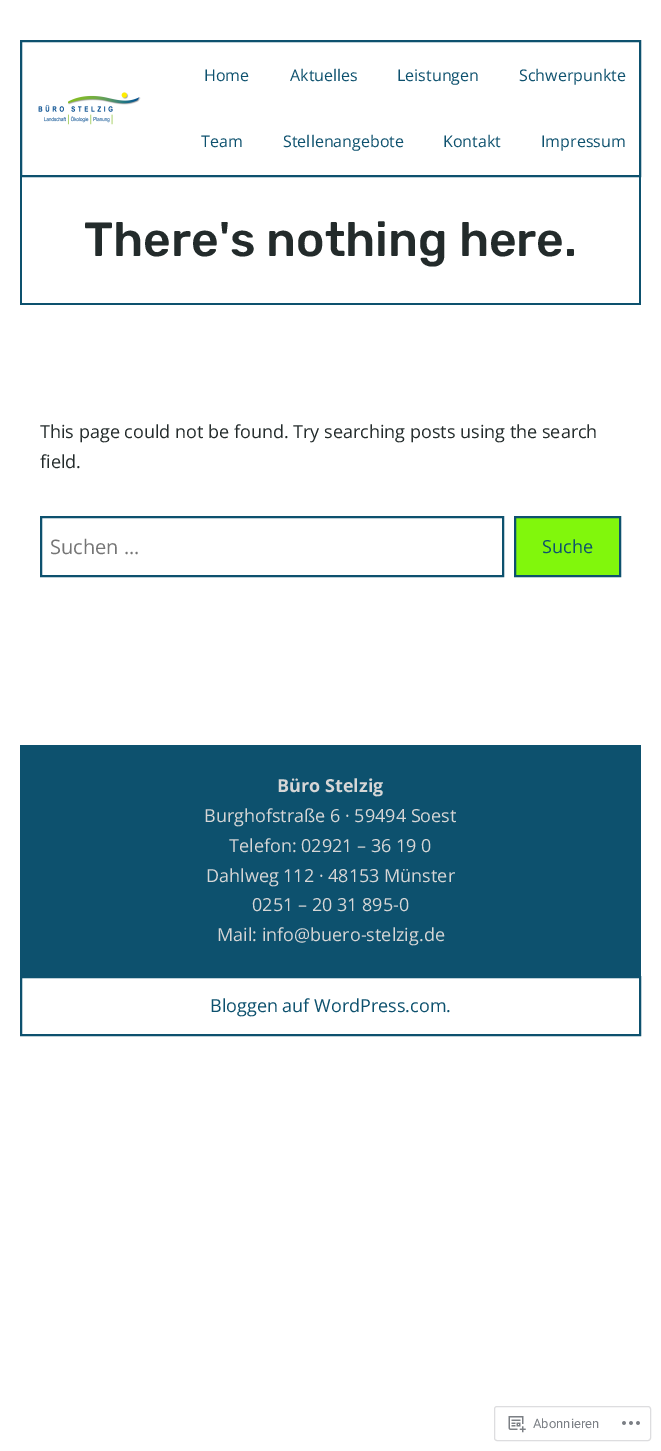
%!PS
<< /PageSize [661 1451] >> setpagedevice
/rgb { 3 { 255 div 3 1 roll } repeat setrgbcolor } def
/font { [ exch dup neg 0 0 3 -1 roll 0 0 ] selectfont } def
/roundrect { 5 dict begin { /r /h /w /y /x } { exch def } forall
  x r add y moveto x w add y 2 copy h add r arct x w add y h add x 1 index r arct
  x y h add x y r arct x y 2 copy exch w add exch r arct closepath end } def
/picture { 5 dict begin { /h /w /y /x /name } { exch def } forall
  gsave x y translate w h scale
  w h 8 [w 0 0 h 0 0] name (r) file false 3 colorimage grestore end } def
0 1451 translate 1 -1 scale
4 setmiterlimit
255 255 255 rgb
0 0 661 1451 rectfill
13 81 110 rgb
2 setlinewidth
21 41 619 135 rectstroke
(img/1.rgb) 38 92 103 33 picture
[
  [639 177 2 128 13 81 110]
  [20 303 621 2 13 81 110]
  [20 177 2 128 13 81 110]
] { aload pop rgb rectfill } forall
41 517 462 59 rectstroke
129 247 12 rgb
515 517 moveto 620 517 lineto 620 576 lineto 515 576 lineto closepath gsave fill grestore
13 81 110 rgb
stroke
20 745 621 231 rectfill
21 977 619 58 rectstroke
221 221 223 rgb
1 setlinewidth
494.5 1406.5 156 34 2.5 roundrect stroke
(img/2.rgb) 508 1416 18 17 picture
(img/3.rgb) 622 1421 18 4 picture
/OpenSans-Regular 16 font
13 81 110 rgb
[
  [(Home) 204 81]
  [(Aktuelles) 290 81]
  [(Leistungen) 397 81]
  [(Schwerpunkte) 519 81]
  [(Team) 201 147]
  [(Stellenangebote) 283 147]
  [(Kontakt) 443 147]
  [(Impressum) 541 147]
] { aload pop moveto show } forall
/Rubik-Medium 48 font
35 43 43 rgb
84 256 moveto (There's nothing here.) show
/OpenSans-Regular 18 font
40 438 moveto (This page could not be found. Try searching posts using the search) show
40 468 moveto (field.) show
/OpenSans-Regular 20 font
117 117 117 rgb
50 554 moveto (Suchen ...) show
/OpenSans-Regular 18 font
13 81 110 rgb
542 553 moveto (Suche) show
/OpenSans-Bold 18 font
214 214 214 rgb
277 792 moveto (Büro Stelzig) show
/OpenSans-Regular 18 font
[
  [(Burghofstraße 6 · 59494 Soest) 204 822]
  [(Telefon: 02921 – 36 19 0) 229 852]
  [(Dahlweg 112 · 48153 Münster) 206 882]
  [(0251 – 20 31 895-0) 252 911]
  [(Mail: info@buero-stelzig.de) 217 941]
] { aload pop moveto show } forall
13 81 110 rgb
210 1012 moveto (Bloggen auf WordPress.com.) show
/Roboto-Regular 13 font
123 127 133 rgb
533 1428 moveto (Abonnieren) show
showpage
